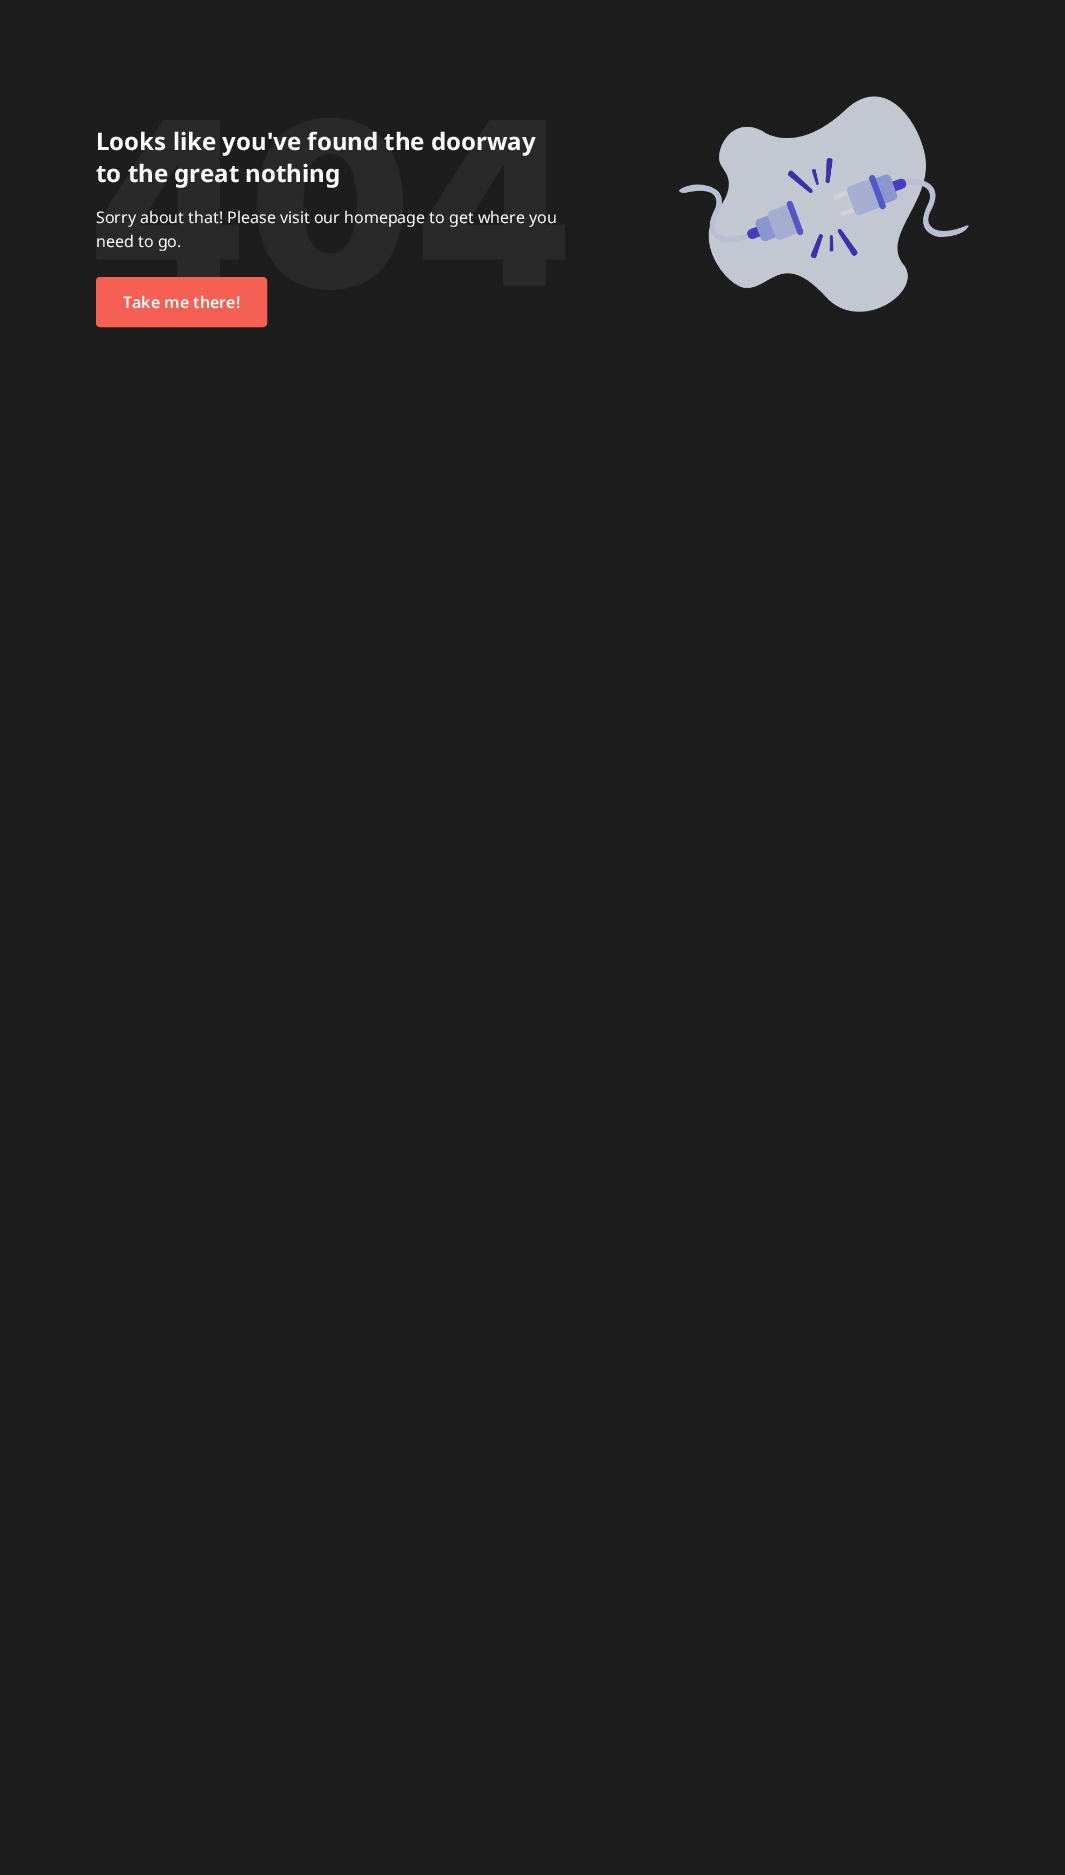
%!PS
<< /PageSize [1065 1875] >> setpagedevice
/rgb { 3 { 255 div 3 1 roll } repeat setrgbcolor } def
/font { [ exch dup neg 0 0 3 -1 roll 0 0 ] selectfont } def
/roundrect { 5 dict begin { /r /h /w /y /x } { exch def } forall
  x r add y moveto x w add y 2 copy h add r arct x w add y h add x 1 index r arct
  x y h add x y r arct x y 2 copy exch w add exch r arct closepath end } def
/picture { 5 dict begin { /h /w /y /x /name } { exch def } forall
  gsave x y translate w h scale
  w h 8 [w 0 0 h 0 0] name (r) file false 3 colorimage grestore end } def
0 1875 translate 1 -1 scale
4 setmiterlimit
29 29 29 rgb
0 0 1065 1875 rectfill
(img/1.rgb) 96 118 469 172 picture
246 95 84 rgb
96.5 277.5 170 49 3.5 roundrect gsave fill grestore
stroke
(img/2.rgb) 679 96 290 216 picture
/NotoSans-Bold 24 font
255 255 255 rgb
96 150 moveto (Looks like you've found the doorway) show
96 182 moveto (to the great nothing) show
/NotoSans-Regular 16 font
96 223 moveto (Sorry about that! Please visit our homepage to get where you) show
96 247 moveto (need to go.) show
/NotoSans-SemiBold 16 font
123 308 moveto (Take me there!) show
showpage
